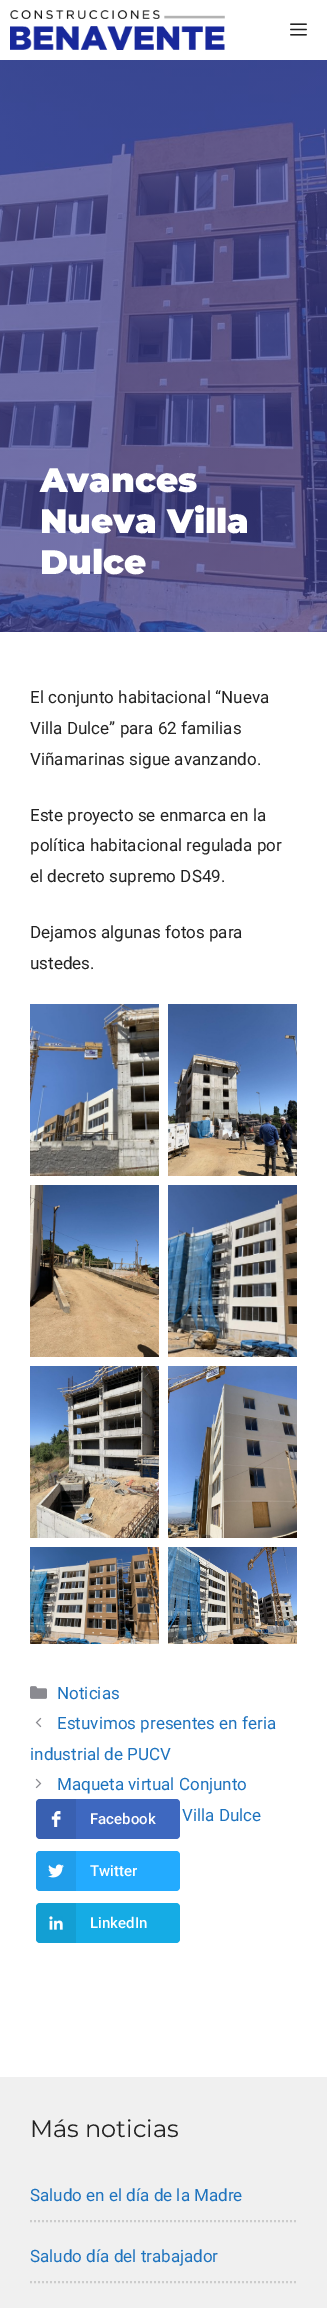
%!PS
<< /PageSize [327 2308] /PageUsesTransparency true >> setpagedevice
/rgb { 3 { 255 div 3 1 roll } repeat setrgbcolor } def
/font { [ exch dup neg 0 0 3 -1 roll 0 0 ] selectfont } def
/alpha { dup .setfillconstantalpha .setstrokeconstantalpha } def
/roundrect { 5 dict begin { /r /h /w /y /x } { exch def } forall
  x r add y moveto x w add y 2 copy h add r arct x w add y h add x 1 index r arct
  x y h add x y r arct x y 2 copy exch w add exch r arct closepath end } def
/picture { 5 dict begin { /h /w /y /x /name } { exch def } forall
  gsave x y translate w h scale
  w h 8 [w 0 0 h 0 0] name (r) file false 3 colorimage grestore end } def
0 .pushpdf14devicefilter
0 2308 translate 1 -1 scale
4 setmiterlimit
255 255 255 rgb
0 0 327 2308 rectfill
(img/1.rgb) 10 10 215 40 picture
(img/2.rgb) 290 23 17 13 picture
(img/3.rgb) 0 60 327 572 picture
(img/4.rgb) 30 1004 129 172 picture
(img/5.rgb) 168 1004 129 172 picture
(img/6.rgb) 30 1185 129 172 picture
(img/7.rgb) 168 1185 129 172 picture
(img/8.rgb) 30 1366 129 172 picture
(img/9.rgb) 168 1366 129 172 picture
(img/10.rgb) 30 1547 129 97 picture
(img/11.rgb) 168 1547 129 97 picture
(img/12.rgb) 30 1686 17 13 picture
(img/13.rgb) 35 1717 7 11 picture
(img/14.rgb) 35 1778 7 11 picture
62 104 192 rgb
36 1799 144 40 4 roundrect fill
0.08 alpha
0 0 0 rgb
40 1799 moveto 76 1799 lineto 76 1839 lineto 40 1839 lineto 38 1839 36 1837 36 1835 curveto 36 1803 lineto 36 1801 38 1799 40 1799 curveto closepath fill
1 alpha
(img/15.rgb) 51 1811 10 16 picture
35 171 255 rgb
36 1851 144 40 4 roundrect fill
0.08 alpha
0 0 0 rgb
40 1851 moveto 76 1851 lineto 76 1891 lineto 40 1891 lineto 38 1891 36 1889 36 1887 curveto 36 1855 lineto 36 1853 38 1851 40 1851 curveto closepath fill
1 alpha
(img/16.rgb) 48 1864 16 14 picture
21 172 229 rgb
36 1903 144 40 4 roundrect fill
0.08 alpha
0 0 0 rgb
40 1903 moveto 76 1903 lineto 76 1943 lineto 40 1943 lineto 38 1943 36 1941 36 1939 curveto 36 1907 lineto 36 1905 38 1903 40 1903 curveto closepath fill
1 alpha
(img/17.rgb) 49 1916 14 14 picture
240 240 240 rgb
0 2077 327 231 rectfill
204 204 204 rgb
2 setlinewidth
[2 2] 0 setdash
30 2221 moveto 297 2221 lineto stroke
30 2282 moveto 297 2282 lineto stroke
/Montserrat-Black 34 font
255 255 255 rgb
[
  [(Avances) 40 492]
  [(Nueva Villa) 40 533]
  [(Dulce) 40 574]
] { aload pop moveto show } forall
/Roboto-Regular 17 font
34 34 34 rgb
[
  [(El conjunto habitacional “Nueva) 30 703]
  [(Villa Dulce” para 62 familias) 30 734]
  [(Viñamarinas sigue avanzando.) 30 765]
  [(Este proyecto se enmarca en la) 30 821]
  [(política habitacional regulada por) 30 851]
  [(el decreto supremo DS49.) 30 882]
  [(Dejamos algunas fotos para) 30 938]
  [(ustedes.) 30 969]
] { aload pop moveto show } forall
30 115 190 rgb
[
  [(Noticias) 57 1699]
  [(Estuvimos presentes en feria) 57 1729]
  [(industrial de PUCV) 30 1760]
  [(Maqueta virtual Conjunto) 57 1790]
  [(Villa Dulce) 182 1821]
] { aload pop moveto show } forall
/Roboto-Medium 15 font
255 255 255 rgb
[
  [(Facebook) 90 1824]
  [(Twitter) 90 1876]
  [(LinkedIn) 90 1928]
] { aload pop moveto show } forall
/Montserrat-Regular 24 font
34 34 34 rgb
30 2137 moveto (Más noticias) show
/Roboto-Regular 17 font
30 115 190 rgb
30 2201 moveto (Saludo en el día de la Madre) show
30 2262 moveto (Saludo día del trabajador) show
.poppdf14devicefilter showpage
